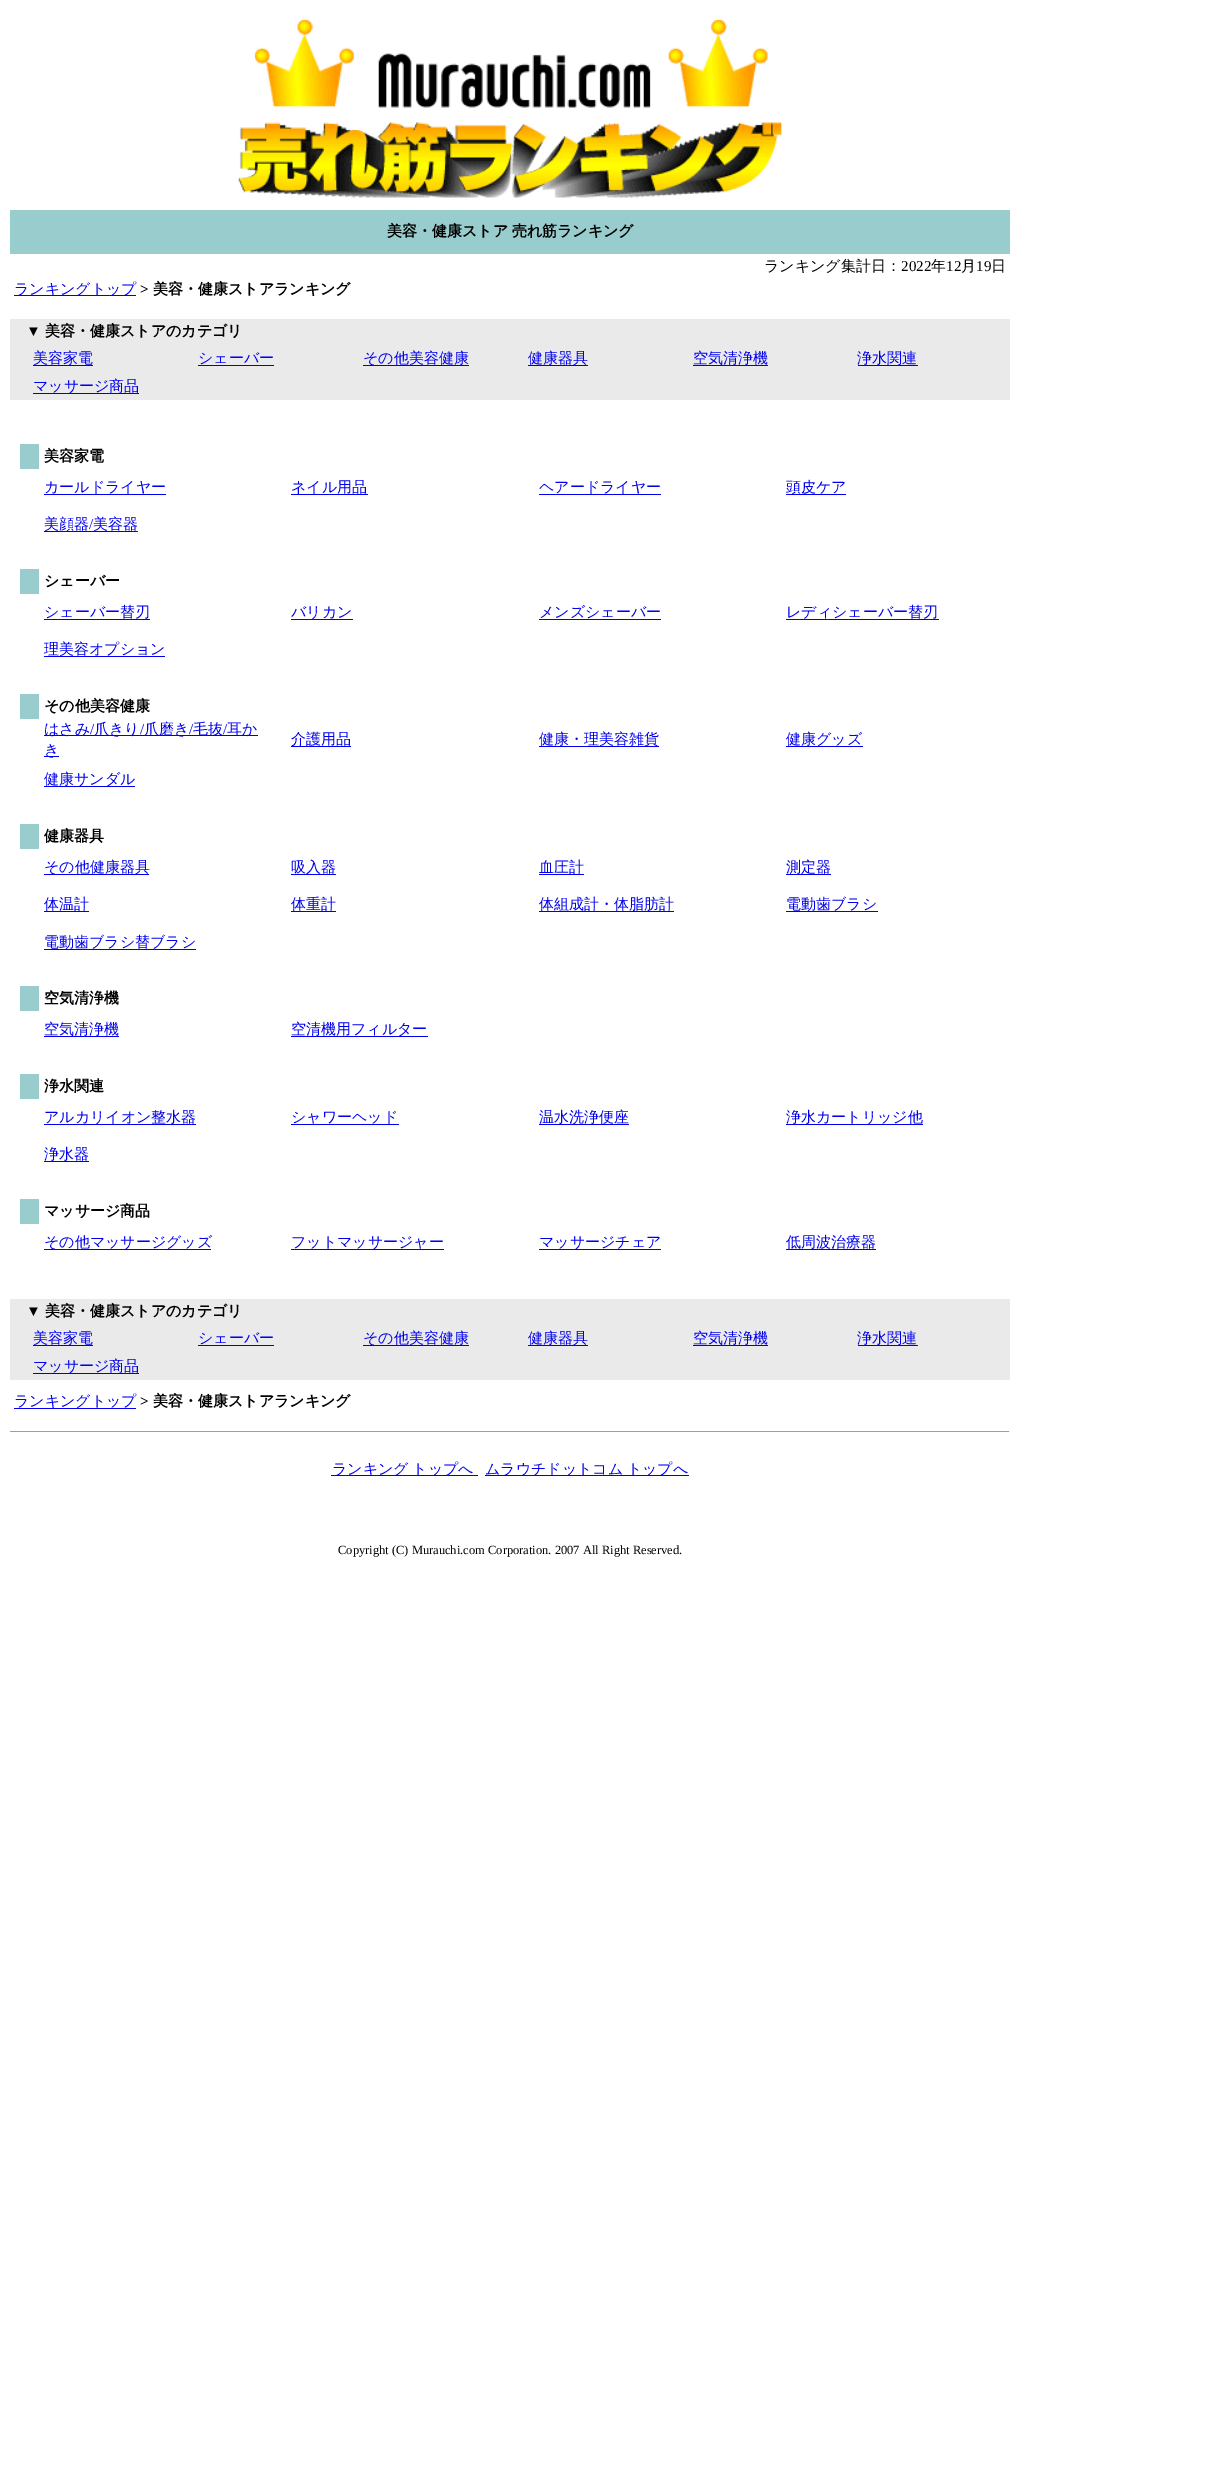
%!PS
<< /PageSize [1214 2479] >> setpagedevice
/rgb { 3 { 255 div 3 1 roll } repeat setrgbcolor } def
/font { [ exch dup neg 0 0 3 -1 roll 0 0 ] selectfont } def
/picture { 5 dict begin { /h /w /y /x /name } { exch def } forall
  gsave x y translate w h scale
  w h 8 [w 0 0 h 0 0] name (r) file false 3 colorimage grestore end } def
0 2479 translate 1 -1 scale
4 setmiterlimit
255 255 255 rgb
0 0 1214 2479 rectfill
(img/1.rgb) 238 19 544 179 picture
[
  [10 210 1000 44 153 204 204]
  [14 295 122 1 0 0 238]
  [10 319 1000 81 234 234 234]
  [33 365 60 1 0 0 238]
  [198 365 76 1 0 0 238]
  [363 365 106 1 0 0 238]
  [528 365 60 1 0 0 238]
  [693 365 75 1 0 0 238]
  [858 365 60 1 0 0 238]
  [33 393 106 1 0 0 238]
  [20 444 19 25 153 204 204]
  [44 494 122 1 0 0 238]
  [291 494 77 1 0 0 238]
  [539 494 122 1 0 0 238]
  [786 494 60 1 0 0 238]
  [44 531 94 1 0 0 238]
  [20 569 19 25 153 204 204]
  [44 619 106 1 0 0 238]
  [291 619 62 1 0 0 238]
  [539 619 122 1 0 0 238]
  [786 619 153 1 0 0 238]
  [44 656 121 1 0 0 238]
  [20 694 19 25 153 204 204]
  [44 735 214 1 0 0 238]
  [44 756 15 1 0 0 238]
  [291 746 60 1 0 0 238]
  [539 746 120 1 0 0 238]
  [786 746 77 1 0 0 238]
  [44 786 91 1 0 0 238]
  [20 824 19 25 153 204 204]
  [44 874 105 1 0 0 238]
  [291 874 45 1 0 0 238]
  [539 874 45 1 0 0 238]
  [786 874 45 1 0 0 238]
  [44 911 45 1 0 0 238]
  [291 911 45 1 0 0 238]
  [539 911 135 1 0 0 238]
  [786 911 92 1 0 0 238]
  [44 949 152 1 0 0 238]
  [20 986 19 25 153 204 204]
  [44 1036 75 1 0 0 238]
  [291 1036 137 1 0 0 238]
  [20 1074 19 25 153 204 204]
  [44 1124 152 1 0 0 238]
  [291 1124 108 1 0 0 238]
  [539 1124 90 1 0 0 238]
  [786 1124 137 1 0 0 238]
  [44 1161 45 1 0 0 238]
  [20 1199 19 25 153 204 204]
  [44 1249 167 1 0 0 238]
  [291 1249 153 1 0 0 238]
  [539 1249 122 1 0 0 238]
  [786 1249 90 1 0 0 238]
  [10 1299 1000 81 234 234 234]
  [33 1345 60 1 0 0 238]
  [198 1345 76 1 0 0 238]
  [363 1345 106 1 0 0 238]
  [528 1345 60 1 0 0 238]
  [693 1345 75 1 0 0 238]
  [858 1345 60 1 0 0 238]
  [33 1373 106 1 0 0 238]
  [14 1408 122 1 0 0 238]
  [10 1431 1000 1 159 159 159]
  [1009 1431 1 1 238 238 238]
  [331 1475 147 1 0 0 238]
  [485 1475 204 1 0 0 238]
] { aload pop rgb rectfill } forall
/WenQuanYiZenHei-Bold 15 font
0 0 0 rgb
387 236 moveto -1 0 32 (美容・健康ストア 売れ筋ランキング) widthshow
/WenQuanYiZenHei-Medium 15 font
764 271 moveto (ランキング集計日：) show
/LiberationSerif-Regular 15 font
901 271 moveto (2022) show
/WenQuanYiZenHei-Medium 15 font
931 271 moveto (年) show
/LiberationSerif-Regular 15 font
946 271 moveto (12) show
/WenQuanYiZenHei-Medium 15 font
961 271 moveto (月) show
/LiberationSerif-Regular 15 font
976 271 moveto (19) show
/WenQuanYiZenHei-Medium 15 font
991 271 moveto (日) show
0 0 238 rgb
14 294 moveto (ランキングトップ) show
/LiberationSerif-Bold 15 font
0 0 0 rgb
140 294 moveto (>) show
/WenQuanYiZenHei-Bold 15 font
153 294 moveto (美容・健康ストアランキング) show
/LiberationSerif-Bold 15 font
26 336 moveto (▼) show
/WenQuanYiZenHei-Bold 15 font
45 336 moveto (美容・健康ストアのカテゴリ) show
/WenQuanYiZenHei-Medium 15 font
0 0 238 rgb
[
  [(美容家電) 33 363]
  [(シェーバー) 198 363]
  [(その他美容健康) 363 363]
  [(健康器具) 528 363]
  [(空気清浄機) 693 363]
  [(浄水関連) 857 363]
  [(マッサージ商品) 33 391]
] { aload pop moveto show } forall
/WenQuanYiZenHei-Bold 15 font
0 0 0 rgb
44 461 moveto (美容家電) show
/WenQuanYiZenHei-Medium 15 font
0 0 238 rgb
[
  [(カールドライヤー) 44 492]
  [(ネイル用品) 291 492]
  [(ヘアードライヤー) 539 492]
  [(頭皮ケア) 786 492]
  [(美顔器) 44 529]
] { aload pop moveto show } forall
/LiberationSerif-Regular 15 font
89 529 moveto (/) show
/WenQuanYiZenHei-Medium 15 font
93 529 moveto (美容器) show
/WenQuanYiZenHei-Bold 15 font
0 0 0 rgb
44 586 moveto (シェーバー) show
/WenQuanYiZenHei-Medium 15 font
0 0 238 rgb
[
  [(シェーバー替刃) 44 617]
  [(バリカン) 291 617]
  [(メンズシェーバー) 539 617]
  [(レディシェーバー替刃) 786 617]
  [(理美容オプション) 44 654]
] { aload pop moveto show } forall
/WenQuanYiZenHei-Bold 15 font
0 0 0 rgb
44 711 moveto (その他美容健康) show
/WenQuanYiZenHei-Medium 15 font
0 0 238 rgb
44 734 moveto (はさみ) show
/LiberationSerif-Regular 15 font
90 734 moveto (/) show
/WenQuanYiZenHei-Medium 15 font
94 734 moveto (爪きり) show
/LiberationSerif-Regular 15 font
140 734 moveto (/) show
/WenQuanYiZenHei-Medium 15 font
144 734 moveto (爪磨き) show
/LiberationSerif-Regular 15 font
189 734 moveto (/) show
/WenQuanYiZenHei-Medium 15 font
193 734 moveto (毛抜) show
/LiberationSerif-Regular 15 font
223 734 moveto (/) show
/WenQuanYiZenHei-Medium 15 font
[
  [(耳か) 227 734]
  [(き) 44 755]
  [(介護用品) 291 744]
  [(健康・理美容雑貨) 539 744]
  [(健康グッズ) 786 744]
  [(健康サンダル) 44 784]
] { aload pop moveto show } forall
/WenQuanYiZenHei-Bold 15 font
0 0 0 rgb
44 841 moveto (健康器具) show
/WenQuanYiZenHei-Medium 15 font
0 0 238 rgb
[
  [(その他健康器具) 44 872]
  [(吸入器) 291 872]
  [(血圧計) 539 872]
  [(測定器) 786 872]
  [(体温計) 44 909]
  [(体重計) 291 909]
  [(体組成計・体脂肪計) 539 909]
  [(電動歯ブラシ) 786 909]
  [(電動歯ブラシ替ブラシ) 44 947]
] { aload pop moveto show } forall
/WenQuanYiZenHei-Bold 15 font
0 0 0 rgb
44 1003 moveto (空気清浄機) show
/WenQuanYiZenHei-Medium 15 font
0 0 238 rgb
44 1034 moveto (空気清浄機) show
291 1034 moveto (空清機用フィルター) show
/WenQuanYiZenHei-Bold 15 font
0 0 0 rgb
44 1091 moveto (浄水関連) show
/WenQuanYiZenHei-Medium 15 font
0 0 238 rgb
[
  [(アルカリイオン整水器) 44 1122]
  [(シャワーヘッド) 291 1122]
  [(温水洗浄便座) 539 1122]
  [(浄水カートリッジ他) 786 1122]
  [(浄水器) 44 1159]
] { aload pop moveto show } forall
/WenQuanYiZenHei-Bold 15 font
0 0 0 rgb
44 1216 moveto (マッサージ商品) show
/WenQuanYiZenHei-Medium 15 font
0 0 238 rgb
[
  [(その他マッサージグッズ) 44 1247]
  [(フットマッサージャー) 291 1247]
  [(マッサージチェア) 539 1247]
  [(低周波治療器) 786 1247]
] { aload pop moveto show } forall
/LiberationSerif-Bold 15 font
0 0 0 rgb
26 1316 moveto (▼) show
/WenQuanYiZenHei-Bold 15 font
45 1316 moveto (美容・健康ストアのカテゴリ) show
/WenQuanYiZenHei-Medium 15 font
0 0 238 rgb
[
  [(美容家電) 33 1343]
  [(シェーバー) 198 1343]
  [(その他美容健康) 363 1343]
  [(健康器具) 528 1343]
  [(空気清浄機) 693 1343]
  [(浄水関連) 857 1343]
  [(マッサージ商品) 33 1371]
  [(ランキングトップ) 14 1406]
] { aload pop moveto show } forall
/LiberationSerif-Bold 15 font
0 0 0 rgb
140 1406 moveto (>) show
/WenQuanYiZenHei-Bold 15 font
153 1406 moveto (美容・健康ストアランキング) show
/WenQuanYiZenHei-Medium 15 font
0 0 238 rgb
332 1474 moveto -1 0 32 (ランキング トップへ) widthshow
485 1474 moveto -1 0 32 (ムラウチドットコム トップへ) widthshow
/LiberationSerif-Regular 12.5 font
0 0 0 rgb
338 1554 moveto (Copyright \(C\) Murauchi.com Corporation. 2007 All Right Reserved.) show
showpage
